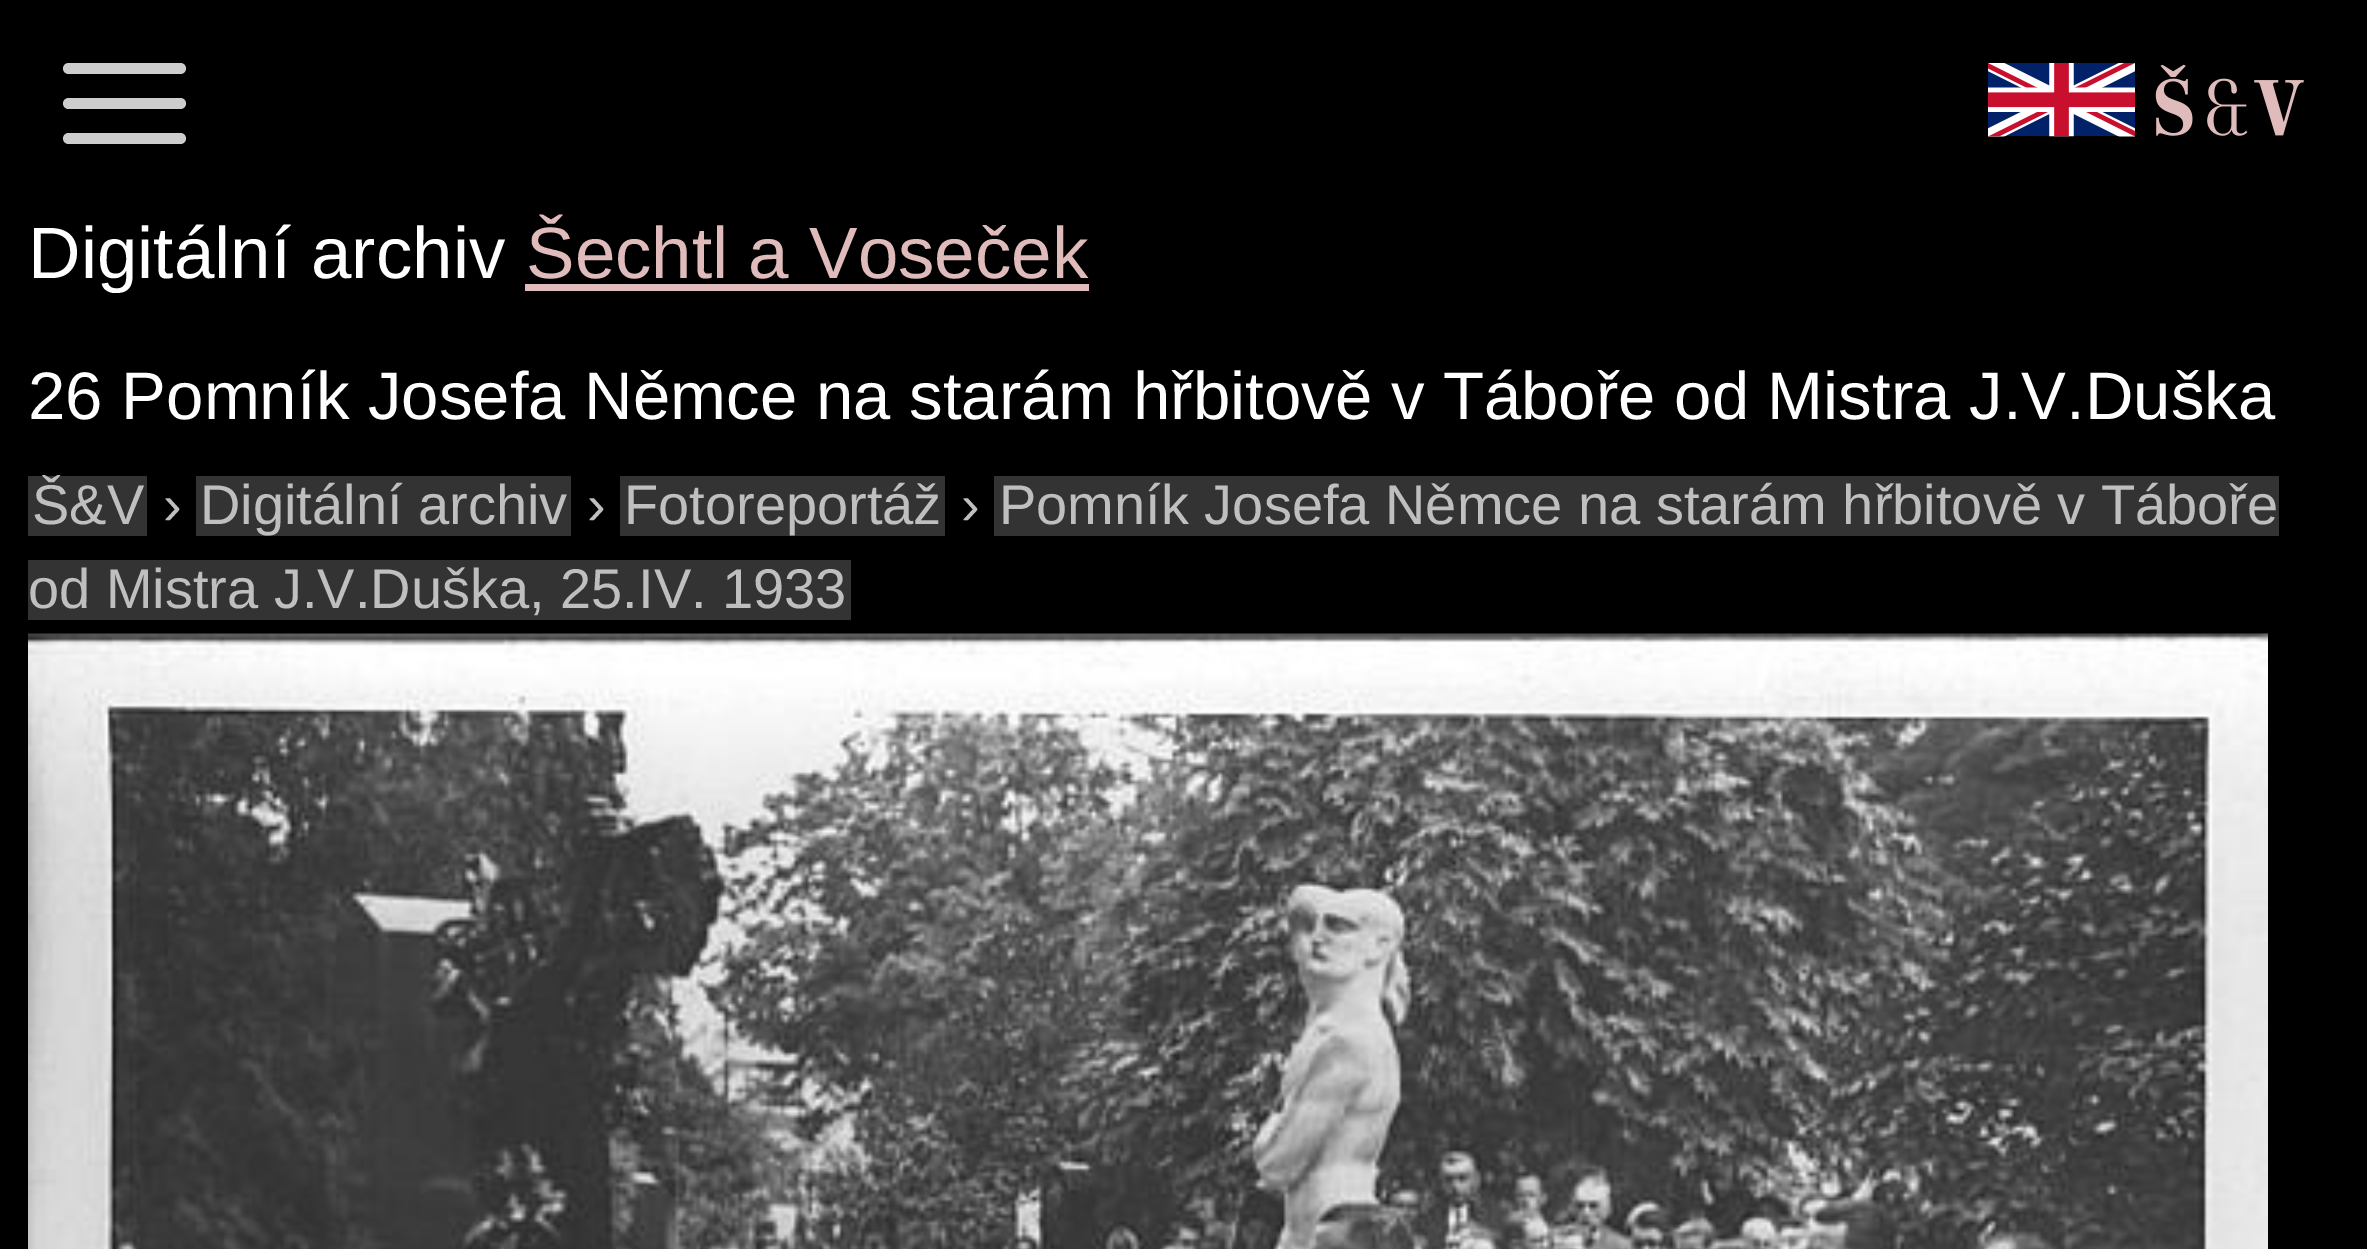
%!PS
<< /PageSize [2367 1249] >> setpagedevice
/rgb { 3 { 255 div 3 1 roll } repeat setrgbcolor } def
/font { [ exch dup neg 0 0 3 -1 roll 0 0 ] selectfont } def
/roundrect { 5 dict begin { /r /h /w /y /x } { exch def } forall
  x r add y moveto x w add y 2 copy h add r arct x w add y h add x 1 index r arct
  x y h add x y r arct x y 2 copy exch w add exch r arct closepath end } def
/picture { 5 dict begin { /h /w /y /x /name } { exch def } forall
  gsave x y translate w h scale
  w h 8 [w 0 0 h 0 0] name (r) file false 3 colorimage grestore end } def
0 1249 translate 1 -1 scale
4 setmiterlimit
0 0 0 rgb
0 0 2367 1249 rectfill
205 205 205 rgb
63 63 123 11 5.5 roundrect fill
(img/1.rgb) 1988 63 147 74 picture
(img/2.rgb) 2155 64 149 72 picture
63 98 123 11 5.5 roundrect fill
63 133 123 11 5.5 roundrect fill
[
  [525 284 564 7 223 187 187]
  [28 476 119 60 51 51 51]
  [196 476 375 60 51 51 51]
  [620 476 325 60 51 51 51]
  [994 476 1285 60 51 51 51]
  [28 560 823 60 51 51 51]
] { aload pop rgb rectfill } forall
(img/3.rgb) 28 633 2240 616 picture
/LiberationSans-Regular 72.75 font
255 255 255 rgb
28 278 moveto (Digitální archiv) show
223 187 187 rgb
526 278 moveto (Šechtl a Voseček) show
/LiberationSans-Regular 67.2 font
255 255 255 rgb
28 419 moveto -0.1 0 32 (26 Pomník Josefa Němce na starám hřbitově v Táboře od Mistra J.V.Duška) widthshow
/LiberationSans-Regular 56 font
191 191 191 rgb
[
  [(Š&V) 32 524]
  [(›) 163 524]
  [(Digitální archiv) 200 524]
  [(›) 587 524]
  [(Fotoreportáž) 624 524]
  [(›) 961 524]
  [(Pomník Josefa Němce na starám hřbitově v Táboře) 999 524]
  [(od Mistra J.V.Duška, 25.IV. 1933) 28 608]
] { aload pop moveto show } forall
showpage
